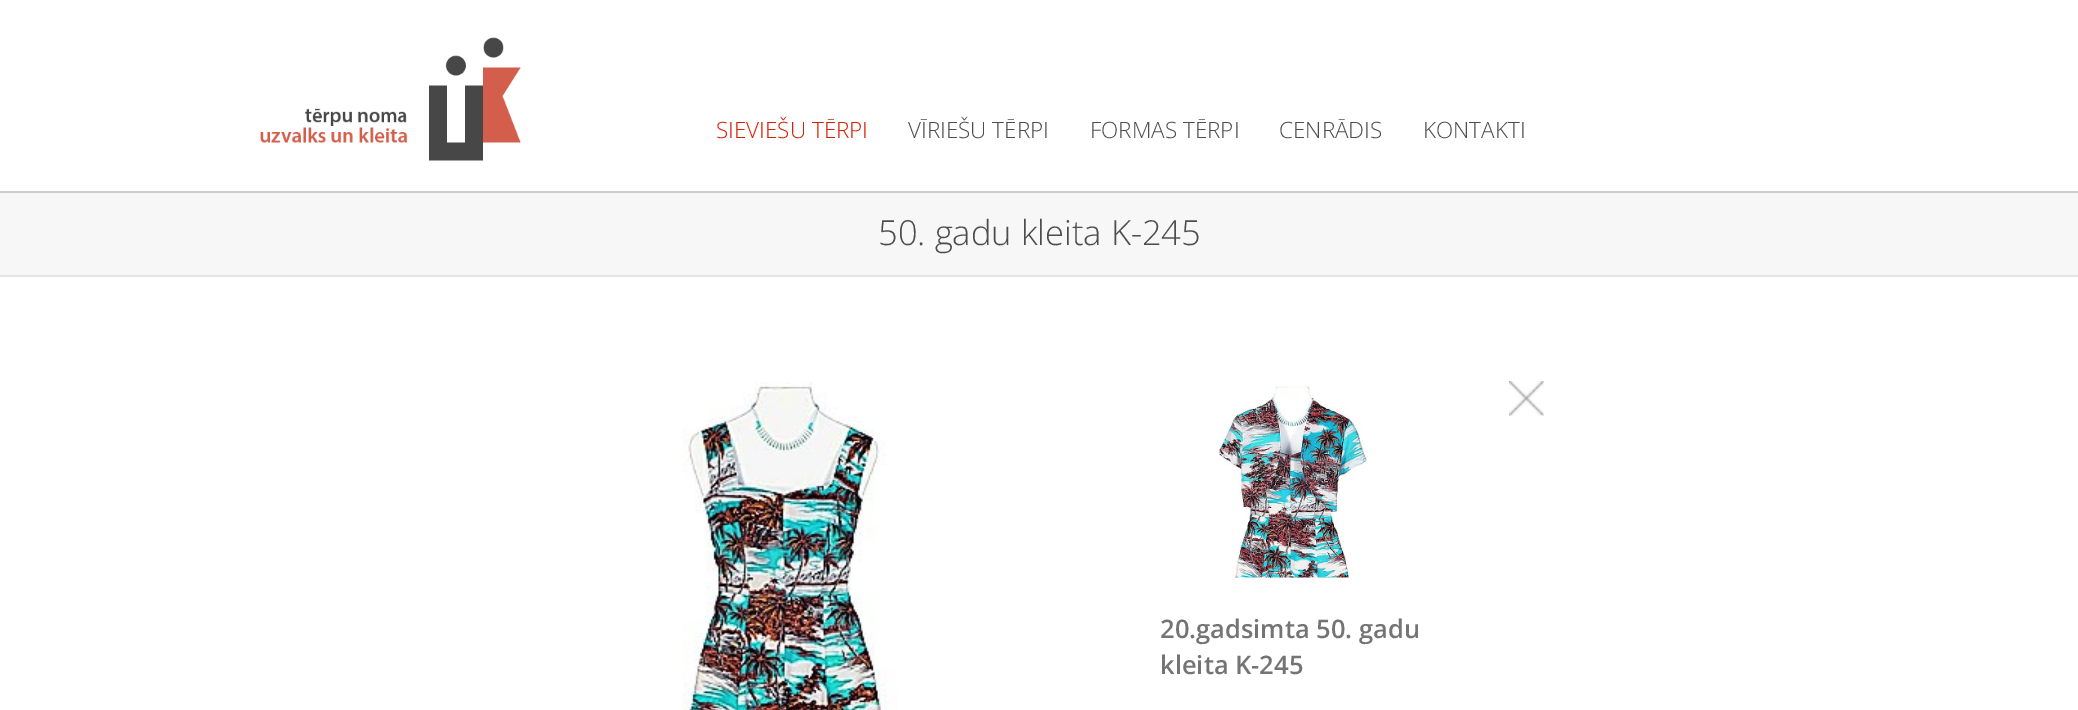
%!PS
<< /PageSize [2078 710] >> setpagedevice
/rgb { 3 { 255 div 3 1 roll } repeat setrgbcolor } def
/font { [ exch dup neg 0 0 3 -1 roll 0 0 ] selectfont } def
/picture { 5 dict begin { /h /w /y /x /name } { exch def } forall
  gsave x y translate w h scale
  w h 8 [w 0 0 h 0 0] name (r) file false 3 colorimage grestore end } def
0 710 translate 1 -1 scale
4 setmiterlimit
255 255 255 rgb
0 0 2078 710 rectfill
(img/1.rgb) 260 37 261 124 picture
[
  [0 193 2078 82 247 247 247]
  [0 191 2078 2 204 204 204]
  [0 275 2078 2 229 229 229]
] { aload pop rgb rectfill } forall
(img/2.rgb) 682 381 216 329 picture
(img/3.rgb) 1219 385 148 193 picture
(img/4.rgb) 1509 381 35 35 picture
/OpenSans-Light 22.5 font
213 32 4 rgb
716 138 moveto (SIEVIEŠU TĒRPI) show
77 77 77 rgb
[
  [(VĪRIEŠU TĒRPI) 908 138]
  [(FORMAS TĒRPI) 1090 138]
  [(CENRĀDIS) 1279 138]
  [(KONTAKTI) 1423 138]
] { aload pop moveto show } forall
/OpenSans-Light 34.5 font
878 245 moveto (50. gadu kleita K-245) show
/OpenSans-SemiBold 25.5 font
116 116 116 rgb
1160 638 moveto (20.gadsimta 50. gadu) show
1160 674 moveto (kleita K-245) show
showpage
